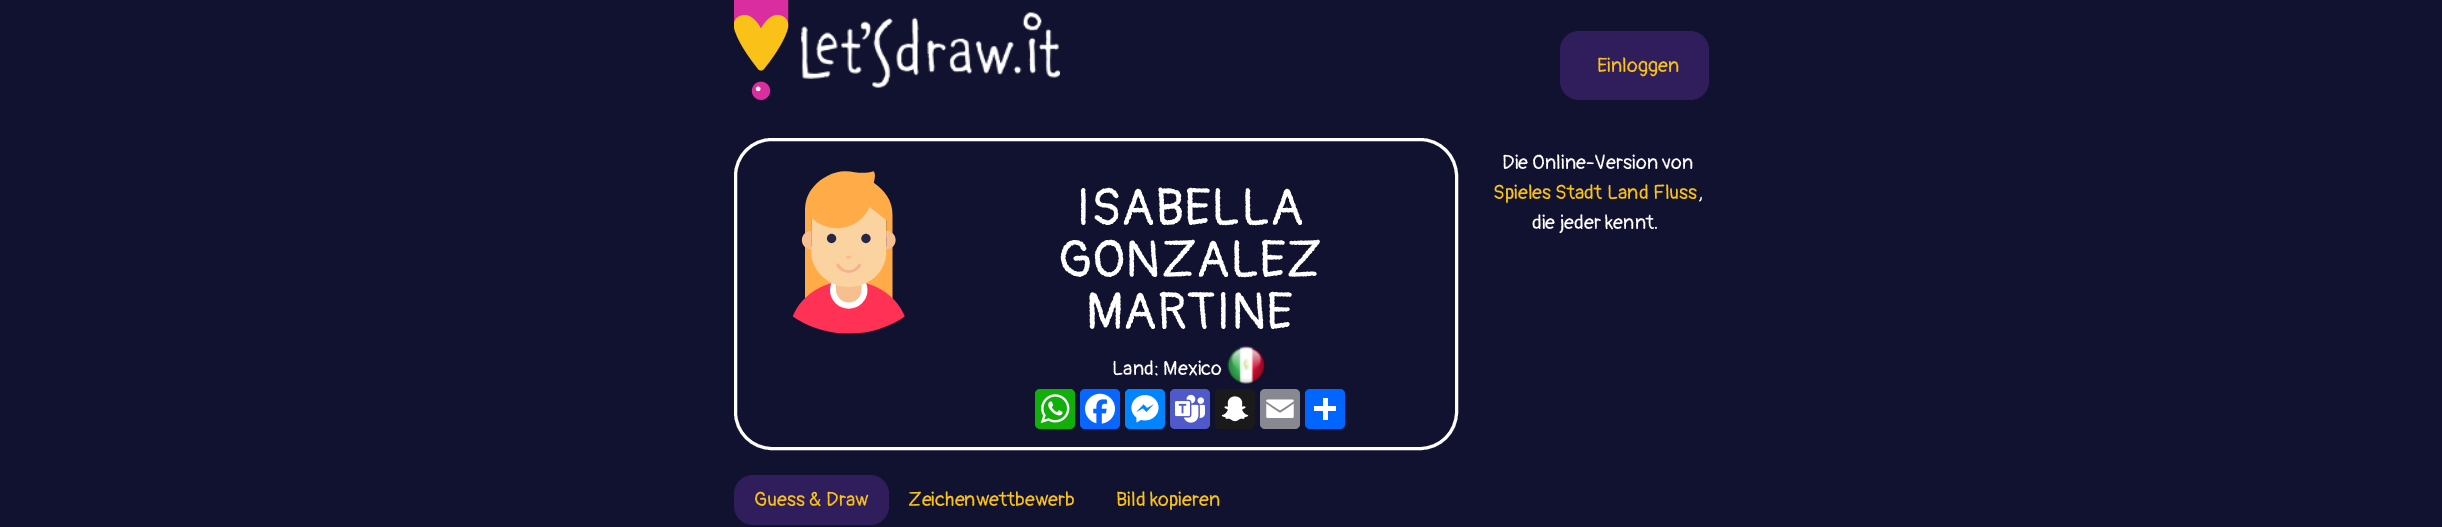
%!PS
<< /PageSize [2442 527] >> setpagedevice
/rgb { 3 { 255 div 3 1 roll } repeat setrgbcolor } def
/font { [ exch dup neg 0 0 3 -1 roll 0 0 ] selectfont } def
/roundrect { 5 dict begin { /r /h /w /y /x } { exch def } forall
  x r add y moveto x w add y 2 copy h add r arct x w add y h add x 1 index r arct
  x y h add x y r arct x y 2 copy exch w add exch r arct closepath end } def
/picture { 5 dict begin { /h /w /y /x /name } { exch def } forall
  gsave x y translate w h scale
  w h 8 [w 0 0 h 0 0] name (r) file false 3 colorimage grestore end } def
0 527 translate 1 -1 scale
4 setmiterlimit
17 17 48 rgb
0 0 2442 527 rectfill
(img/1.rgb) 734 0 55 100 picture
(img/2.rgb) 801 12 259 76 picture
47 29 92 rgb
1560 31 149 69 19 roundrect fill
255 255 255 rgb
3 setlinewidth
735.5 139.5 721 309 36.5 roundrect stroke
(img/3.rgb) 792 171 113 163 picture
(img/4.rgb) 1227 346 38 38 picture
18 175 10 rgb
1035 389 40 40 5 roundrect fill
(img/5.rgb) 1040 394 30 30 picture
8 102 255 rgb
1080 389 40 40 5 roundrect fill
(img/6.rgb) 1085 393 30 31 picture
0 132 255 rgb
1125 389 40 40 5 roundrect fill
(img/7.rgb) 1131 395 28 28 picture
80 89 201 rgb
1170 389 40 40 5 roundrect fill
(img/8.rgb) 1175 394 30 29 picture
26 26 26 rgb
1215 389 40 40 5 roundrect fill
(img/9.rgb) 1221 396 28 26 picture
136 137 144 rgb
1260 389 40 40 5 roundrect fill
(img/10.rgb) 1266 399 28 19 picture
1 102 255 rgb
1305 389 40 40 5 roundrect fill
255 255 255 rgb
1323 398 5 22 rectfill
1314 406 22 5 rectfill
47 29 92 rgb
734 475 155 50 19 roundrect fill
/Pangolin-Regular 20 font
250 194 24 rgb
1597 72 moveto (Einloggen) show
/Pangolin-Regular 52 font
255 255 255 rgb
[
  [(ISABELLA) 1076 225]
  [(GONZALEZ) 1058 277]
  [(MARTINE) 1086 329]
] { aload pop moveto show } forall
/Pangolin-Regular 20 font
1112 375 moveto (Land: Mexico) show
1502 169 moveto (Die Online-Version von) show
250 194 24 rgb
1493 199 moveto (Spieles Stadt Land Fluss) show
255 255 255 rgb
1698 199 moveto (,) show
1532 229 moveto (die jeder kennt.) show
250 194 24 rgb
[
  [(Guess & Draw) 754 506]
  [(Zeichenwettbewerb) 908 506]
  [(Bild kopieren) 1116 506]
] { aload pop moveto show } forall
showpage
